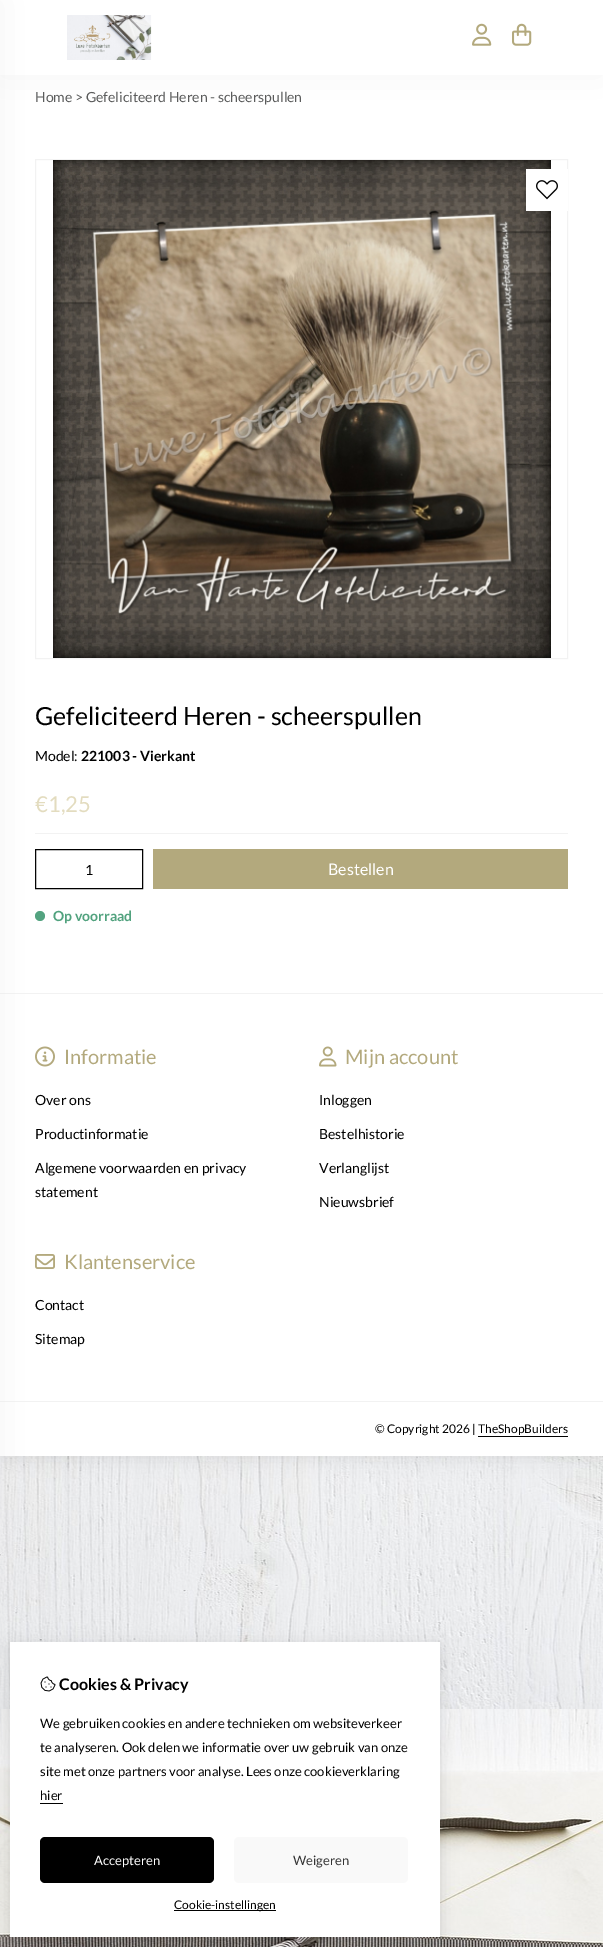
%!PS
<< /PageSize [603 1947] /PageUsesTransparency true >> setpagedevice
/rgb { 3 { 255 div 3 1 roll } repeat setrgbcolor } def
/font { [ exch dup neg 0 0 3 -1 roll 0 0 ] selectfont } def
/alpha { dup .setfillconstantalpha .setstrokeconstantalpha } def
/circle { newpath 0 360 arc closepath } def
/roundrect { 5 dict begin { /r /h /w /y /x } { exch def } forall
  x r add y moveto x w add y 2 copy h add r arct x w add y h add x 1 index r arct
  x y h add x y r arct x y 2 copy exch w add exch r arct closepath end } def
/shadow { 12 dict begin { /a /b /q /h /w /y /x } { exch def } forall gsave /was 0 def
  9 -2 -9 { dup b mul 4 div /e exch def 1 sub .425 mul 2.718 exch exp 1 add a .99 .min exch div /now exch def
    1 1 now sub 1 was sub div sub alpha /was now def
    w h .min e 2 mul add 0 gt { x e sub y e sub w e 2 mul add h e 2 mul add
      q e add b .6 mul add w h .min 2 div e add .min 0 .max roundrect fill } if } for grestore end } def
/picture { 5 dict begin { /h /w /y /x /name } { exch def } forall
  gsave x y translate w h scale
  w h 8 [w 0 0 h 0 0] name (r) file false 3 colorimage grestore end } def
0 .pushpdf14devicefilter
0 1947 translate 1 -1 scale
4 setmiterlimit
255 255 255 rgb
0 0 603 1947 rectfill
(img/1.rgb) 0 1456 603 491 picture
0 0 0 rgb
0 70 603 1386 0 10 0.1 shadow
255 255 255 rgb
0 75 603 1381 rectfill
231 231 231 rgb
0 0 603 75 0 20 0.46 shadow
255 255 255 rgb
0 0 603 75 rectfill
242 242 242 rgb
35.5 159.5 532 499 rectstroke
(img/5.rgb) 53 160 498 498 picture
35 833 533 1 rectfill
0 0 0 rgb
35.5 849.5 107 39 rectstroke
81 162 126 rgb
40 916 5 circle fill
242 242 242 rgb
0 993 603 1 rectfill
(img/7.rgb) 35 1046 20 21 picture
(img/9.rgb) 35 1254 20 15 picture
0 1401 603 1 rectfill
231 231 231 rgb
-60 0 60 1947 0 20 0.46 shadow
(img/2.rgb) 67 15 85 45 picture
(img/3.rgb) 472 23 20 23 picture
(img/4.rgb) 512 23 20 23 picture
255 255 255 rgb
526 169 42 42 rectfill
(img/6.rgb) 536 180 22 20 picture
179 169 125 rgb
153 849 415 40 rectfill
(img/8.rgb) 319 1046 18 21 picture
0 0 0 rgb
478 1436 90 1 rectfill
76 76 76 rgb
10 1646 430 295 0 8.5 0.2 shadow
255 255 255 rgb
10 1642 430 295 rectfill
(img/10.rgb) 40 1676 16 16 picture
0 0 0 rgb
40 1803 23 1 rectfill
40 1837 174 46 5 roundrect fill
249 249 249 rgb
234 1837 174 46 5 roundrect fill
0 0 0 rgb
174 1910 102 1 rectfill
/Lato-Regular 14 font
91 92 92 rgb
35 102 moveto (Home > Gefeliciteerd Heren - scheerspullen) show
/Lato-Regular 25 font
0 0 0 rgb
35 725 moveto (Gefeliciteerd Heren - scheerspullen) show
/Lato-Regular 14 font
35 761 moveto (Model:) show
/Lato-Bold 14 font
81 761 moveto (221003 - Vierkant) show
/Lato-Regular 22 font
227 220 191 rgb
35 812 moveto (€1,25) show
/Lato-Regular 14 font
0 0 0 rgb
85 875 moveto (1) show
/Lato-Regular 16 font
255 255 255 rgb
328 875 moveto (Bestellen) show
/Lato-Bold 14 font
81 162 126 rgb
53 921 moveto (Op voorraad) show
/Lato-Regular 20 font
179 169 125 rgb
64 1064 moveto (Informatie) show
/Lato-Regular 14 font
0 0 0 rgb
[
  [(Over ons) 35 1105]
  [(Productinformatie) 35 1139]
  [(Algemene voorwaarden en privacy) 35 1173]
  [(statement) 35 1197]
] { aload pop moveto show } forall
/Lato-Regular 20 font
179 169 125 rgb
345 1064 moveto (Mijn account) show
/Lato-Regular 14 font
0 0 0 rgb
[
  [(Inloggen) 319 1105]
  [(Bestelhistorie) 319 1139]
  [(Verlanglijst) 319 1173]
  [(Nieuwsbrief) 319 1207]
] { aload pop moveto show } forall
/Lato-Regular 20 font
179 169 125 rgb
64 1269 moveto (Klantenservice) show
/Lato-Regular 14 font
0 0 0 rgb
35 1310 moveto (Contact) show
35 1344 moveto (Sitemap) show
/Lato-Regular 12 font
375 1433 moveto (© Copyright 2026 | TheShopBuilders) show
/Lato-Bold 16 font
59 1690 moveto (Cookies & Privacy) show
/Lato-Regular 13 font
[
  [(We gebruiken cookies en andere technieken om websiteverkeer) 40 1728]
  [(te analyseren. Ook delen we informatie over uw gebruik van onze) 40 1752]
  [(site met onze partners voor analyse. Lees onze cookieverklaring) 40 1776]
  [(hier) 40 1800]
] { aload pop moveto show } forall
255 255 255 rgb
94 1865 moveto (Accepteren) show
51 51 51 rgb
293 1865 moveto (Weigeren) show
/Lato-Regular 12 font
0 0 0 rgb
174 1909 moveto (Cookie-instellingen) show
.poppdf14devicefilter showpage
